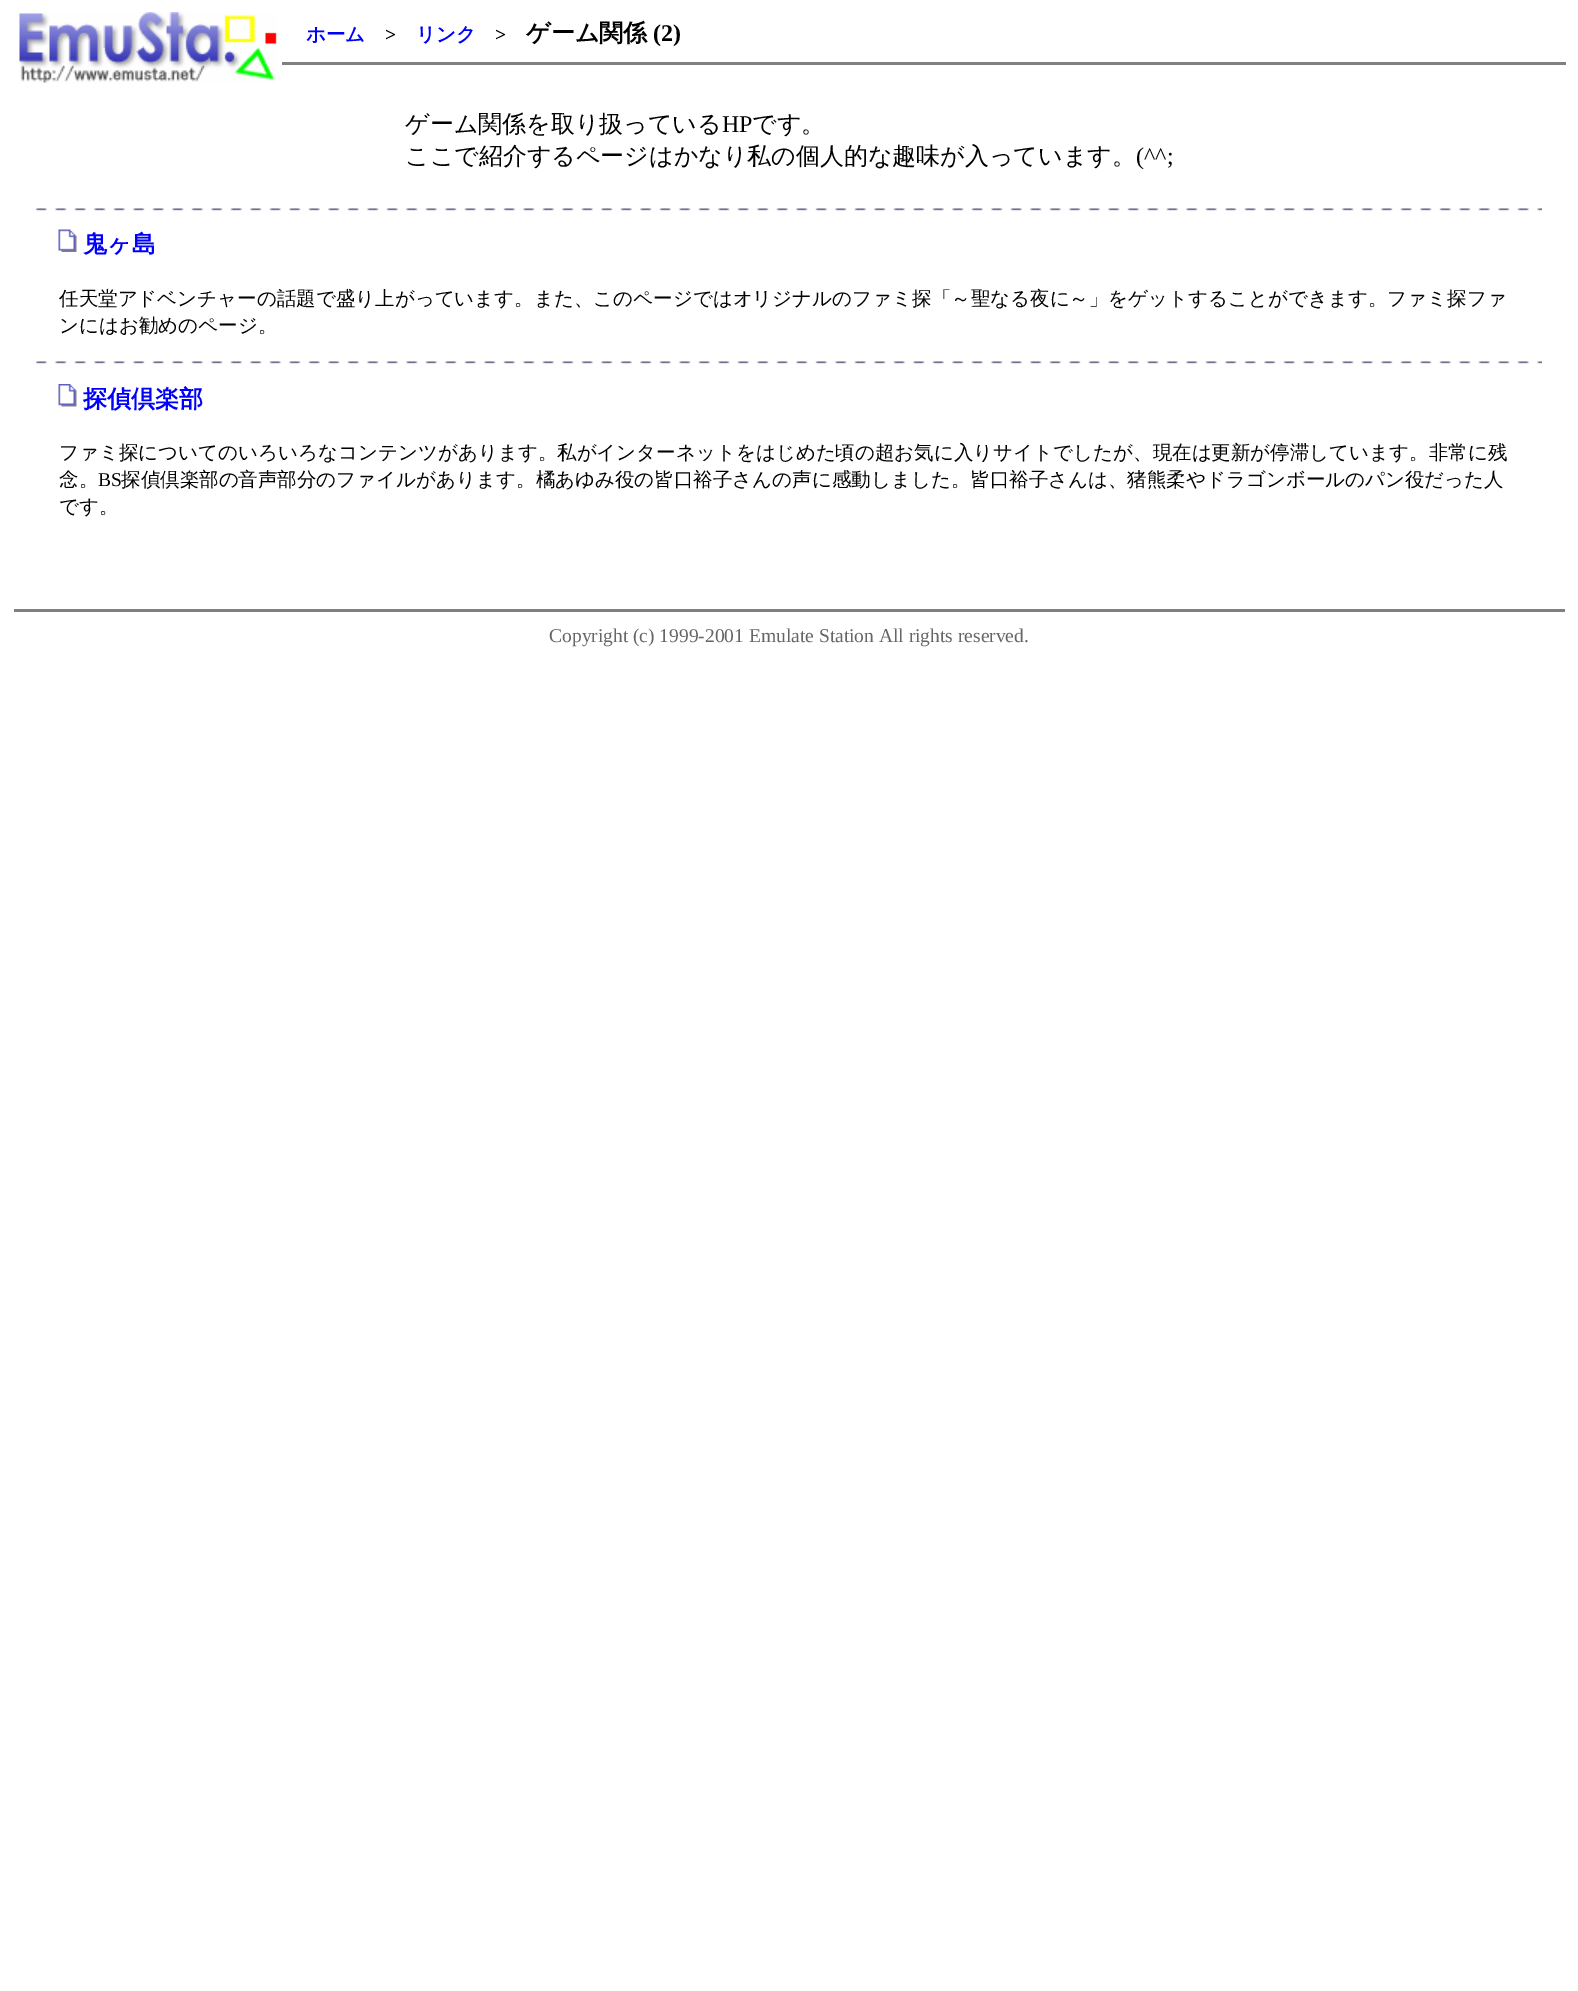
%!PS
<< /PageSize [1578 1991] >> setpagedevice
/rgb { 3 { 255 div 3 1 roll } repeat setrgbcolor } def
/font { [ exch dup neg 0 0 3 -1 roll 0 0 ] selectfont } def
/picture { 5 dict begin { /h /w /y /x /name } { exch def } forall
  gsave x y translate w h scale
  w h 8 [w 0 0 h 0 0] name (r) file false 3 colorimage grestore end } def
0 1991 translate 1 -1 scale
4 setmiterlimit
255 255 255 rgb
0 0 1578 1991 rectfill
(img/1.rgb) 19 12 258 71 picture
128 128 128 rgb
282 62 1284 3 rectfill
(img/2.rgb) 36 208 1506 3 picture
(img/3.rgb) 58 229 19 23 picture
(img/4.rgb) 36 361 1506 3 picture
(img/5.rgb) 58 384 19 23 picture
14 609 1551 3 rectfill
/WenQuanYiZenHei-Bold 19.5 font
0 0 255 rgb
306 41 moveto (ホーム) show
/LiberationSerif-Bold 19.5 font
0 0 0 rgb
385 41 moveto (>) show
/WenQuanYiZenHei-Bold 19.5 font
0 0 255 rgb
416 41 moveto (リンク) show
/LiberationSerif-Bold 19.5 font
0 0 0 rgb
495 41 moveto (>) show
/WenQuanYiZenHei-Bold 24 font
526 41 moveto (ゲーム関係) show
/LiberationSerif-Bold 24 font
653 41 moveto (\(2\)) show
/WenQuanYiZenHei-Medium 24 font
405 132 moveto (ゲーム関係を取り扱っている) show
/LiberationSerif-Regular 24 font
722 132 moveto (HP) show
/WenQuanYiZenHei-Medium 24 font
752 132 moveto (です。) show
405 164 moveto (ここで紹介するページはかなり私の個人的な趣味が入っています。) show
/LiberationSerif-Regular 24 font
1136 164 moveto (\(^^;) show
/WenQuanYiZenHei-Bold 24 font
0 0 255 rgb
83 252 moveto (鬼ヶ島) show
/WenQuanYiZenHei-Medium 19.5 font
0 0 0 rgb
59 305 moveto (任天堂アドベンチャーの話題で盛り上がっています。また、このページではオリジナルのファミ探「～聖なる夜に～」をゲットすることができます。ファミ探ファ) show
59 332 moveto (ンにはお勧めのページ。) show
/WenQuanYiZenHei-Bold 24 font
0 0 255 rgb
83 407 moveto (探偵倶楽部) show
/WenQuanYiZenHei-Medium 19.5 font
0 0 0 rgb
59 459 moveto (ファミ探についてのいろいろなコンテンツがあります。私がインターネットをはじめた頃の超お気に入りサイトでしたが、現在は更新が停滞しています。非常に残) show
59 486 moveto (念。) show
/LiberationSerif-Regular 19.5 font
98 486 moveto (BS) show
/WenQuanYiZenHei-Medium 19.5 font
121 486 moveto (探偵倶楽部の音声部分のファイルがあります。橘あゆみ役の皆口裕子さんの声に感動しました。皆口裕子さんは、猪熊柔やドラゴンボールのパン役だった人) show
59 513 moveto (です。) show
/LiberationSerif-Regular 19.5 font
102 102 102 rgb
549 642 moveto (Copyright \(c\) 1999-2001 Emulate Station All rights reserved.) show
showpage
